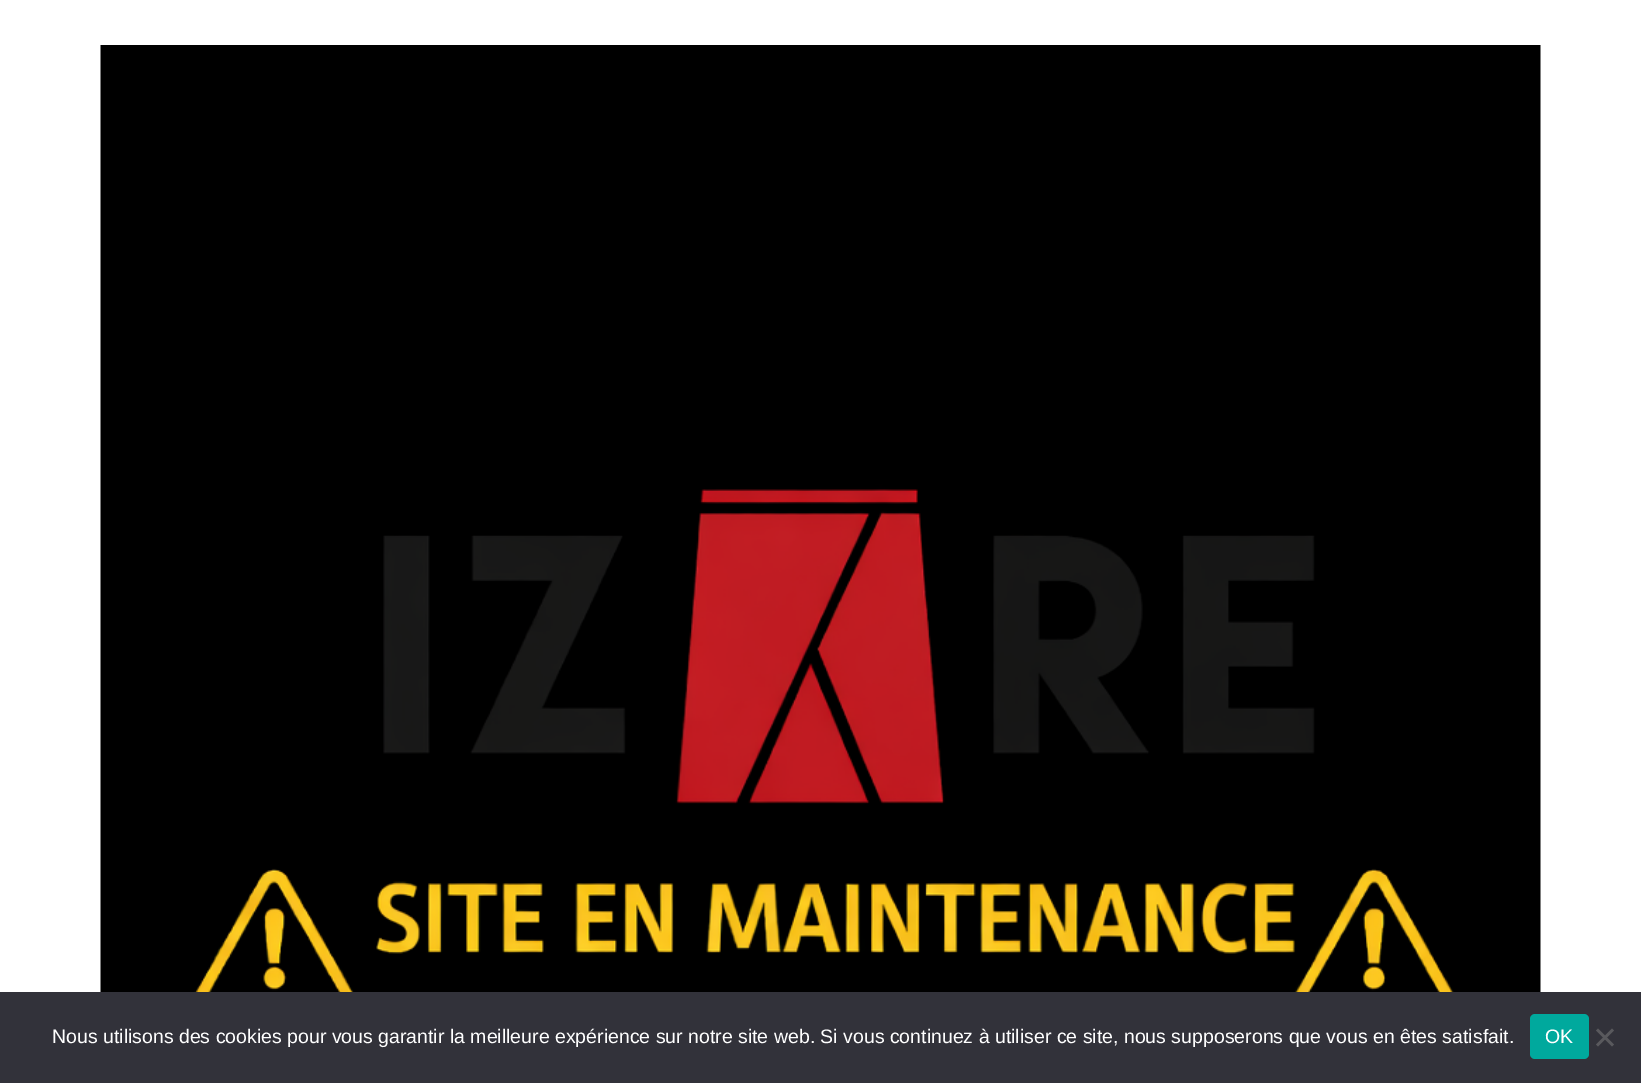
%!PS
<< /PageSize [1641 1083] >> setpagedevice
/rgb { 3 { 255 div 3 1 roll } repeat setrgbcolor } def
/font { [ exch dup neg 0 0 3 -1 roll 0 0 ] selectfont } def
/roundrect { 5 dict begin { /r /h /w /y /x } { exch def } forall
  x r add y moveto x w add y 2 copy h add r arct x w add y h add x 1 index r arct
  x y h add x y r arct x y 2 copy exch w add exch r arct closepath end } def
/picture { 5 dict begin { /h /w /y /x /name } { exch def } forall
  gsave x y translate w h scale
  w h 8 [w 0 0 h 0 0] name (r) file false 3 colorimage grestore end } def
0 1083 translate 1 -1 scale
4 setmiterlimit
255 255 255 rgb
0 0 1641 1083 rectfill
(img/1.rgb) 100 45 1441 947 picture
50 50 58 rgb
0 992 1641 91 rectfill
0 169 157 rgb
1530 1014 59 45 5 roundrect fill
89 89 93 rgb
1612 1028.5 moveto 1614 1030.5 lineto 1598 1046.5 lineto 1596 1044.5 lineto closepath fill
1596 1030.5 moveto 1598 1028.5 lineto 1614 1044.5 lineto 1612 1046.5 lineto closepath fill
/LiberationSans-Regular 19.5 font
255 255 255 rgb
52 1043 moveto (Nous utilisons des cookies pour vous garantir la meilleure expérience sur notre site web. Si vous continuez à utiliser ce site, nous supposerons que vous en êtes satisfait.) show
1545 1043 moveto (OK) show
showpage
